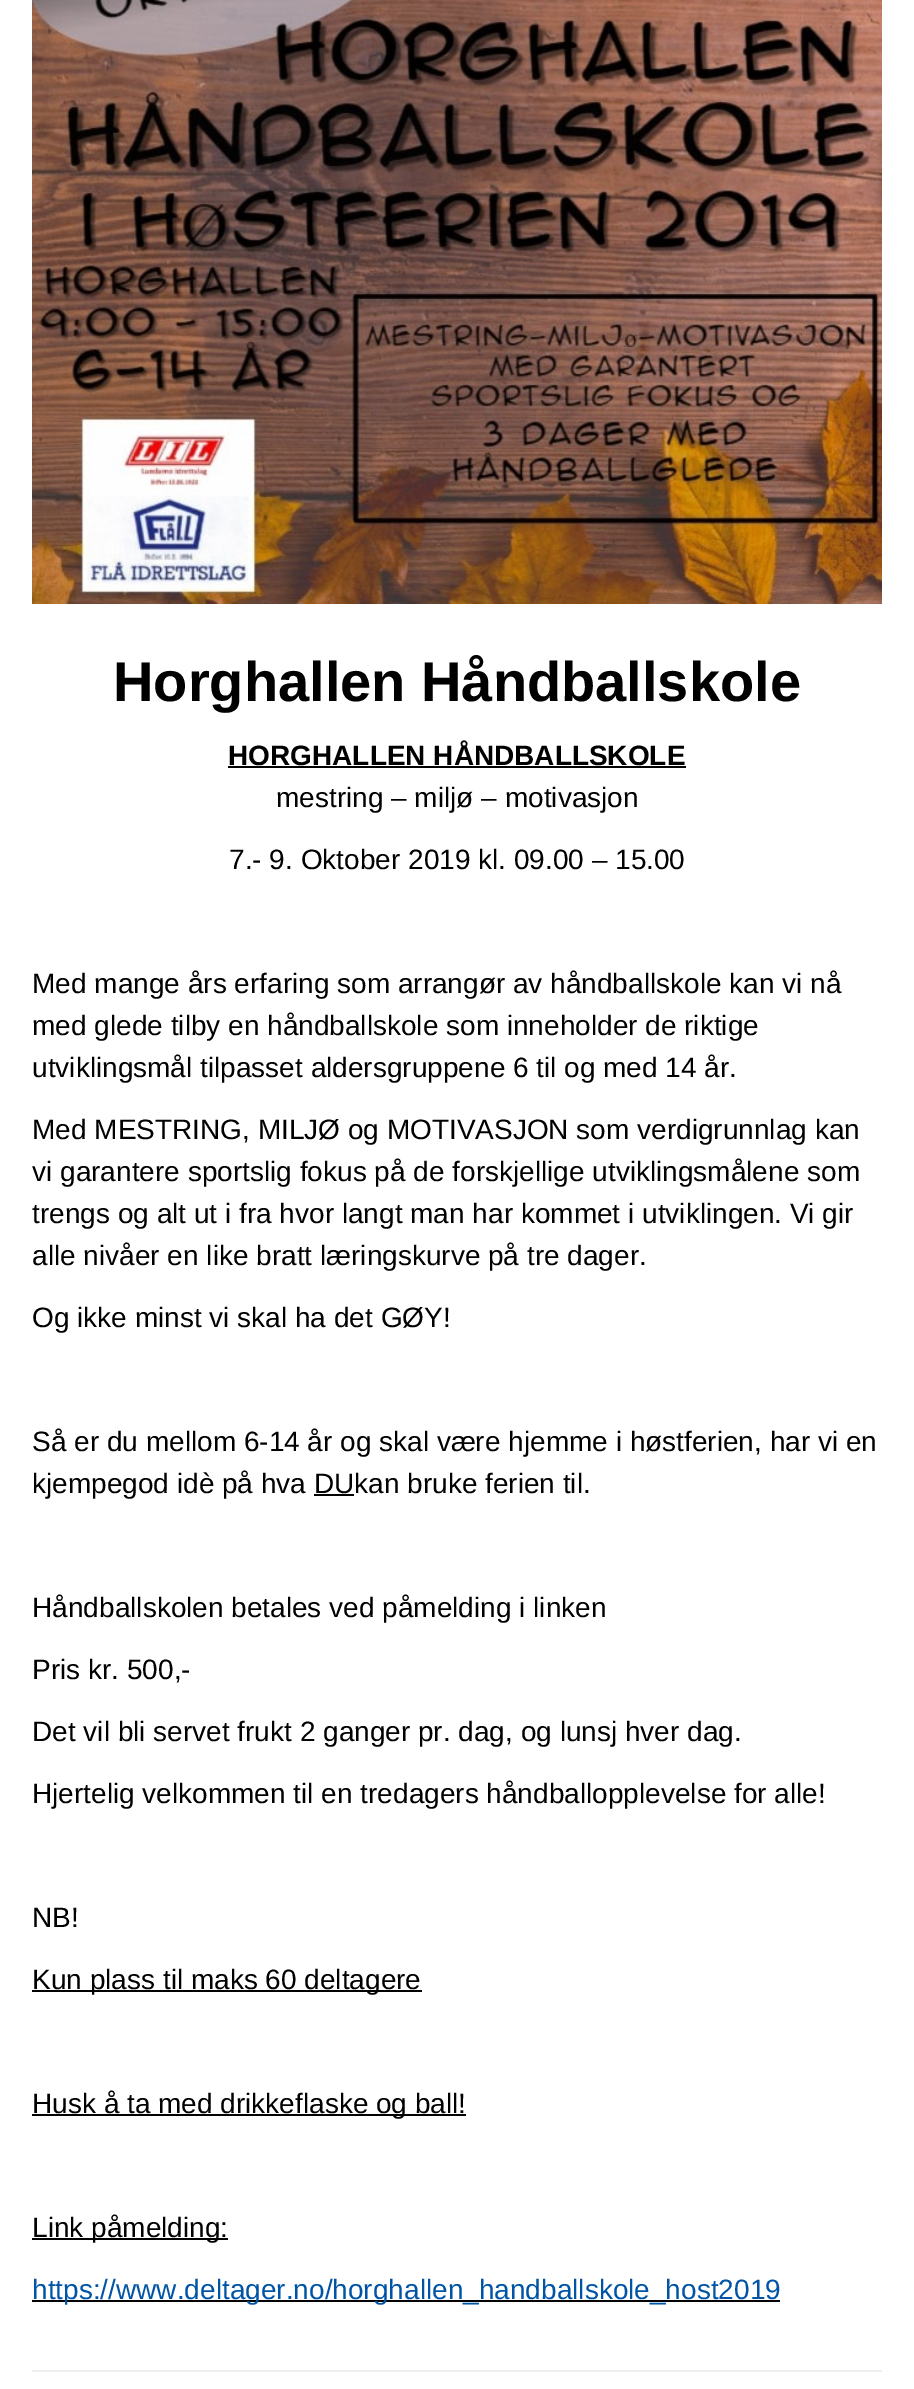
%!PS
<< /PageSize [914 2389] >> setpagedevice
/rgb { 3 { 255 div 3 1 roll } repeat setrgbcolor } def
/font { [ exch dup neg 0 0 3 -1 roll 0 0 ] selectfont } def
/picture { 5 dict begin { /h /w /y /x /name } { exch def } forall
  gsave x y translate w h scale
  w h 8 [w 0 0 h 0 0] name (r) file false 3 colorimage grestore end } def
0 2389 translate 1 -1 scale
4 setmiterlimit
255 255 255 rgb
0 0 914 2389 rectfill
(img/1.rgb) 32 0 850 604 picture
[
  [228 766 458 2 0 0 0]
  [314 1494 40 2 0 0 0]
  [32 1990 390 2 0 0 0]
  [32 2114 434 2 0 0 0]
  [32 2238 196 2 0 0 0]
  [32 2300 748 2 0 0 0]
  [32 2370 850 2 238 238 238]
] { aload pop rgb rectfill } forall
/LiberationSans-Bold 56 font
0 0 0 rgb
113 701 moveto (Horghallen Håndballskole) show
/LiberationSans-Bold 28 font
228 765 moveto (HORGHALLEN HÅNDBALLSKOLE) show
/LiberationSans-Regular 28 font
[
  [(mestring – miljø – motivasjon) 276 807]
  [(7.- 9. Oktober 2019 kl. 09.00 – 15.00) 229 869]
  [(Med mange års erfaring som arrangør av håndballskole kan vi nå) 32 993]
  [(med glede tilby en håndballskole som inneholder de riktige) 32 1035]
  [(utviklingsmål tilpasset aldersgruppene 6 til og med 14 år.) 32 1077]
  [(Med MESTRING, MILJØ og MOTIVASJON som verdigrunnlag kan) 32 1139]
  [(vi garantere sportslig fokus på de forskjellige utviklingsmålene som) 32 1181]
  [(trengs og alt ut i fra hvor langt man har kommet i utviklingen. Vi gir) 32 1223]
  [(alle nivåer en like bratt læringskurve på tre dager.) 32 1265]
  [(Og ikke minst vi skal ha det GØY!) 32 1327]
  [(Så er du mellom 6-14 år og skal være hjemme i høstferien, har vi en) 32 1451]
  [(kjempegod idè på hva DUkan bruke ferien til.) 32 1493]
  [(Håndballskolen betales ved påmelding i linken) 32 1617]
  [(Pris kr. 500,-) 32 1679]
  [(Det vil bli servet frukt 2 ganger pr. dag, og lunsj hver dag.) 32 1741]
  [(Hjertelig velkommen til en tredagers håndballopplevelse for alle!) 32 1803]
  [(NB!) 32 1927]
  [(Kun plass til maks 60 deltagere) 32 1989]
  [(Husk å ta med drikkeflaske og ball!) 32 2113]
  [(Link påmelding:) 32 2237]
] { aload pop moveto show } forall
0 84 166 rgb
32 2299 moveto (https://www.deltager.no/horghallen_handballskole_host2019) show
showpage
